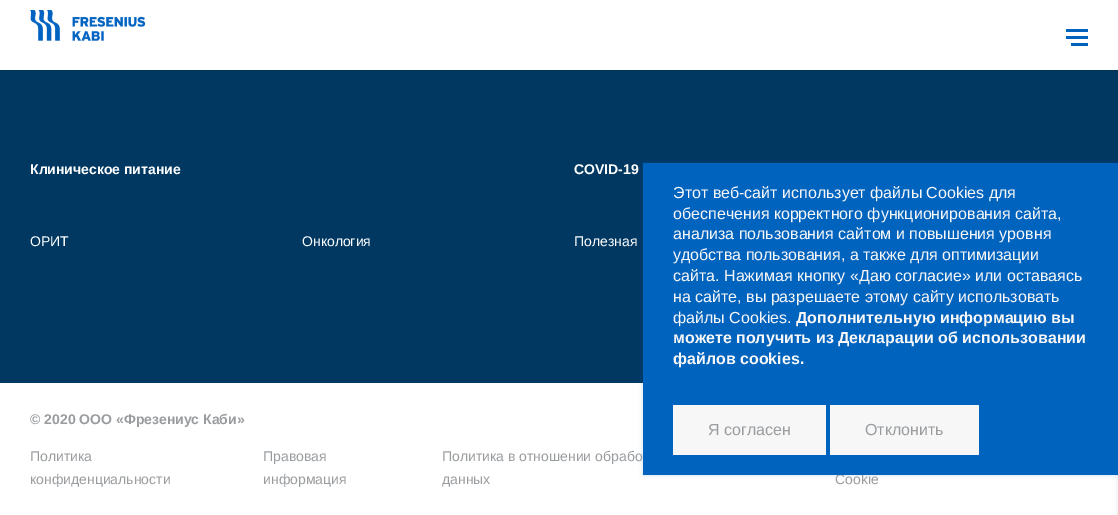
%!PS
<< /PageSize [1118 515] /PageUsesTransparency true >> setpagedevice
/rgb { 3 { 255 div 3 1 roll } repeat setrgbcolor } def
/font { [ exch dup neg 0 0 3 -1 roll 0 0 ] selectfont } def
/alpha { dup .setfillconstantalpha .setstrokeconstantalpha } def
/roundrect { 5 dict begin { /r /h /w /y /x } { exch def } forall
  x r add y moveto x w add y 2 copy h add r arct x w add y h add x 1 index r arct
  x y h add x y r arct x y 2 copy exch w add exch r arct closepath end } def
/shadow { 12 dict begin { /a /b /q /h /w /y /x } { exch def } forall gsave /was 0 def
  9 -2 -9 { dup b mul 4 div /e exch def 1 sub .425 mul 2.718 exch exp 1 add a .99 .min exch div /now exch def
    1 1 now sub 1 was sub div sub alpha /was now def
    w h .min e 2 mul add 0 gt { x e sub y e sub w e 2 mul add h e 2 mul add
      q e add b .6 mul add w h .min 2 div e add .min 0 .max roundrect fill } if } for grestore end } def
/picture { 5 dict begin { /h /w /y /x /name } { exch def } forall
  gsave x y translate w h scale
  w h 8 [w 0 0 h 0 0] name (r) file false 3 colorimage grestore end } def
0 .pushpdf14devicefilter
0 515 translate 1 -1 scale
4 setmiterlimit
255 255 255 rgb
0 0 1118 515 rectfill
0 56 98 rgb
0 70 1118 313 rectfill
0 0 0 rgb
0 2 1118 70 0 2 0.1 shadow
255 255 255 rgb
0 0 1118 70 rectfill
(img/1.rgb) 30 10 115 31 picture
[
  [1066 29 22 3 0 99 190]
  [1066 36 22 3 0 99 190]
  [1071 43 17 3 0 99 190]
] { aload pop rgb rectfill } forall
0 0 0 rgb
1118 72 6 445 0 2 0.1 shadow
0 99 190 rgb
643 163 475 312 0 2.5 0.2 shadow
/LiberationSans-Bold 14 font
255 255 255 rgb
30 174 moveto (Клиническое питание) show
/LiberationSans-Regular 14 font
30 246 moveto (ОРИТ) show
302 246 moveto (Онкология) show
/LiberationSans-Bold 14 font
574 174 moveto (COVID-19) show
/LiberationSans-Regular 14 font
574 246 moveto (Полезная) show
/LiberationSans-Bold 14 font
153 156 159 rgb
30 424 moveto (© 2020 ООО «Фрезениус Каби») show
/LiberationSans-Regular 14 font
[
  [(Политика) 30 461]
  [(конфиденциальности) 30 484]
  [(Правовая) 263 461]
  [(информация) 263 484]
  [(Политика в отношении обрабо) 442 461]
  [(данных) 442 484]
  [(Cookie) 835 484]
] { aload pop moveto show } forall
0 99 190 rgb
643 163 475 312 rectfill
247 247 247 rgb
830 405 149 50 rectfill
/LiberationSans-Regular 16 font
153 156 159 rgb
865 435 moveto (Отклонить) show
247 247 247 rgb
673 405 153 50 rectfill
153 156 159 rgb
708 435 moveto (Я согласен) show
/LiberationSans-Bold 16 font
247 247 247 rgb
[
  [(файлов cookies.) 673 364]
  [(можете получить из Декларации об использовании) 673 343]
  [(Дополнительную информацию вы) 796 323]
] { aload pop moveto show } forall
/LiberationSans-Regular 16 font
[
  [(файлы Cookies.) 673 323]
  [(на сайте, вы разрешаете этому сайту использовать) 673 302]
  [(сайта. Нажимая кнопку «Даю согласие» или оставаясь) 673 281]
  [(удобства пользования, а также для оптимизации) 673 260]
  [(анализа пользования сайтом и повышения уровня) 673 239]
  [(обеспечения корректного функционирования сайта,) 673 219]
  [(Этот веб-сайт использует файлы Cookies для) 673 198]
] { aload pop moveto show } forall
.poppdf14devicefilter showpage
